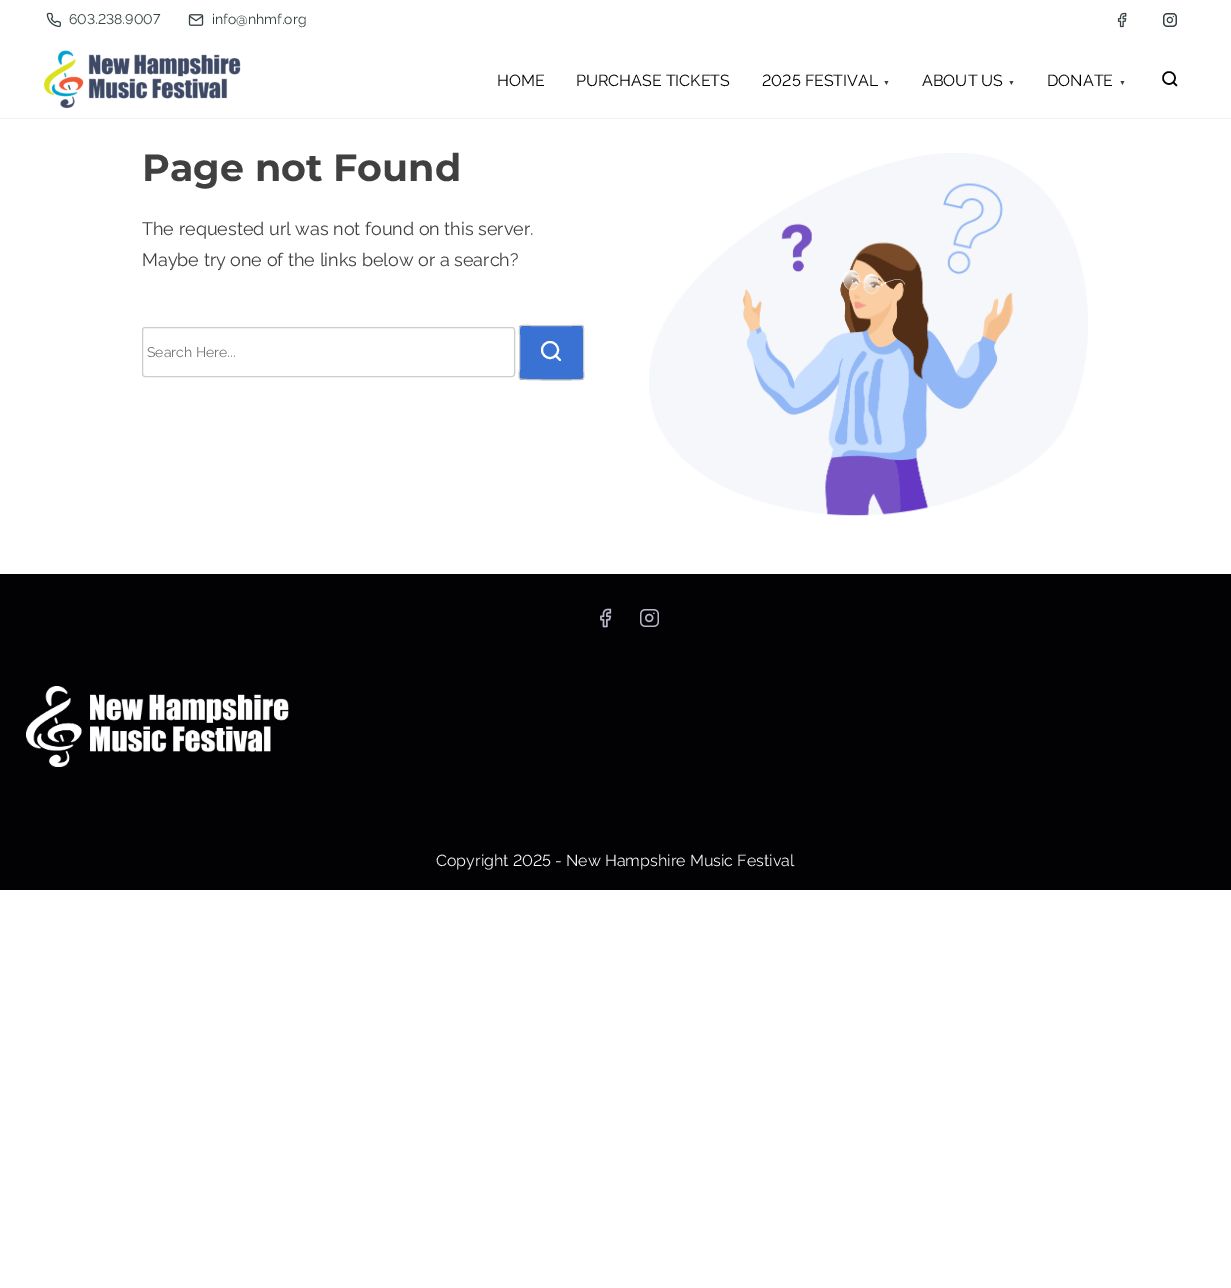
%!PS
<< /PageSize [1231 1288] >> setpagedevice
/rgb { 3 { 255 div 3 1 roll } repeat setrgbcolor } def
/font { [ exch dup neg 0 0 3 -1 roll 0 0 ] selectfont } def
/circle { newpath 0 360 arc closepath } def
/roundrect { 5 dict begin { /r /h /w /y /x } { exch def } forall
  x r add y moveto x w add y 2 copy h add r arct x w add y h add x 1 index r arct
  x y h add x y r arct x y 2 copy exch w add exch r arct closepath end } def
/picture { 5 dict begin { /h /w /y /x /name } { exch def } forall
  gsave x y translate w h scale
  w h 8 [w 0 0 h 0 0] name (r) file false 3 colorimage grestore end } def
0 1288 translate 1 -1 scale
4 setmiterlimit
255 255 255 rgb
0 0 1231 1288 rectfill
(img/1.rgb) 46 12 15 16 picture
(img/2.rgb) 188 14 16 12 picture
(img/3.rgb) 1117 12 10 16 picture
(img/4.rgb) 1163 13 14 14 picture
242 242 242 rgb
0 118 1231 1 rectfill
(img/5.rgb) 43 50 198 59 picture
0 0 0 rgb
1.5 setlinewidth
1169 78 6 circle stroke
1 setlinecap
1 setlinejoin
1176.5 85.5 moveto 1173.5 82.5 lineto stroke
204 204 204 rgb
1 setlinewidth
0 setlinecap
0 setlinejoin
142.5 327.5 372 49 2.5 roundrect stroke
58 114 211 rgb
519 325 65 55 3 roundrect fill
187 187 187 rgb
583 379 moveto 581 379.5 lineto 576 380 521.5 380 520.5 379 curveto 520 379 lineto stroke
204 204 204 rgb
520 379 moveto 518 376.5 519.5 372 519.5 369 curveto 519.5 336 lineto 519.5 323 518 325.5 532 325.5 curveto 571 325.5 lineto 585 325.5 583.5 323 583.5 336 curveto 583.5 369 lineto 583.5 372 585 376.5 583 379 curveto stroke
255 255 255 rgb
2 setlinewidth
550 350 8 circle stroke
1 setlinecap
1 setlinejoin
560 360 moveto 555.5 355.5 lineto stroke
(img/6.rgb) 649 153 439 363 picture
2 2 5 rgb
0 574 1231 316 rectfill
(img/7.rgb) 600 608 12 20 picture
(img/8.rgb) 640 609 19 18 picture
(img/9.rgb) 26 686 263 81 picture
/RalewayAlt-Regular 14 font
51 65 66 rgb
69 24 moveto (603.238.9007) show
/Raleway-Regular 14 font
212 24 moveto (info@nhmf.org) show
/Raleway-Regular 16 font
0 0 0 rgb
497 86 moveto (HOME) show
576 86 moveto (PURCHASE TICKETS) show
/RalewayAlt-Regular 16 font
762 86 moveto (2025 FESTIVAL) show
/LiberationSerif-Regular 7 font
64 64 64 rgb
883 85 moveto (▼) show
/Raleway-Regular 16 font
0 0 0 rgb
922 86 moveto (ABOUT US) show
/LiberationSerif-Regular 7 font
64 64 64 rgb
1008 85 moveto (▼) show
/Raleway-Regular 16 font
0 0 0 rgb
1047 86 moveto (DONATE) show
/LiberationSerif-Regular 7 font
64 64 64 rgb
1119 85 moveto (▼) show
/Montserrat-Bold 38 font
142 181 moveto (Page not Found) show
/Raleway-Regular 18 font
142 235 moveto (The requested url was not found on this server.) show
142 266 moveto (Maybe try one of the links below or a search?) show
/Raleway-Regular 14 font
117 117 117 rgb
147 357 moveto (Search Here...) show
/RalewayAlt-Regular 16 font
245 245 245 rgb
436 866 moveto (Copyright 2025 - New Hampshire Music Festival) show
showpage
